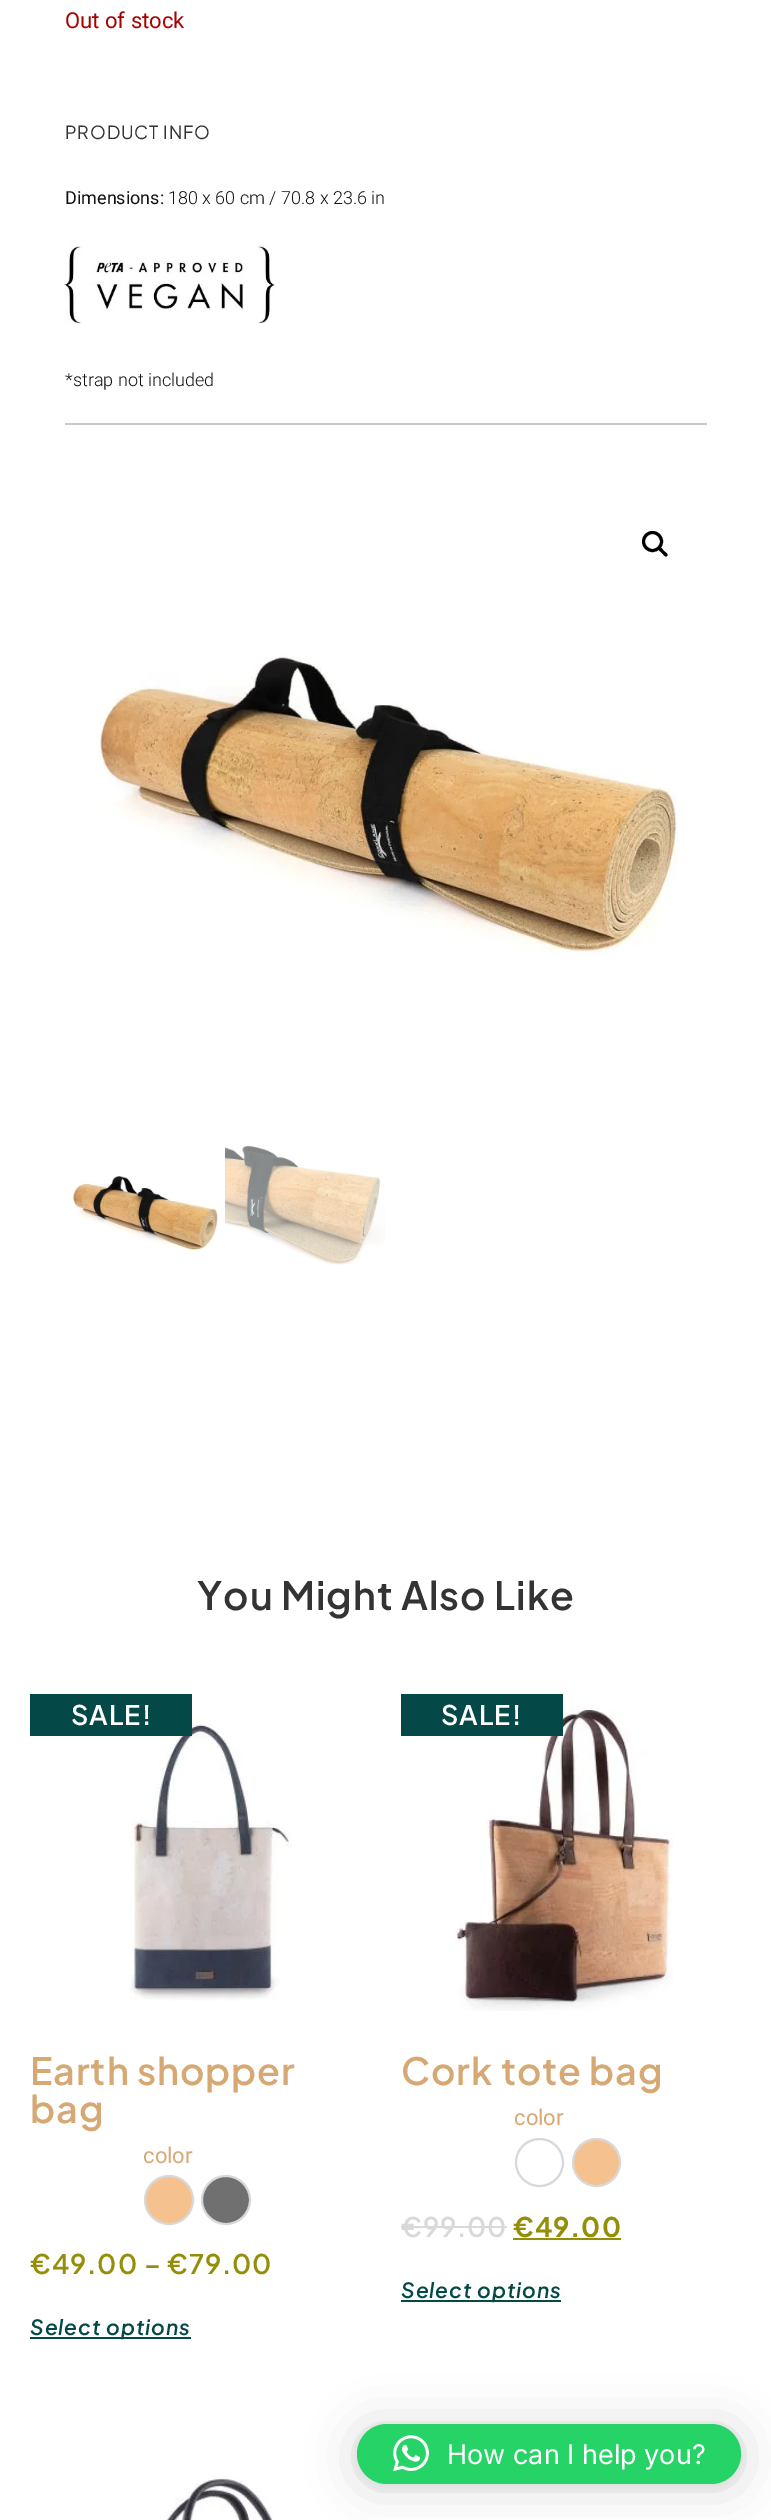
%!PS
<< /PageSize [771 2520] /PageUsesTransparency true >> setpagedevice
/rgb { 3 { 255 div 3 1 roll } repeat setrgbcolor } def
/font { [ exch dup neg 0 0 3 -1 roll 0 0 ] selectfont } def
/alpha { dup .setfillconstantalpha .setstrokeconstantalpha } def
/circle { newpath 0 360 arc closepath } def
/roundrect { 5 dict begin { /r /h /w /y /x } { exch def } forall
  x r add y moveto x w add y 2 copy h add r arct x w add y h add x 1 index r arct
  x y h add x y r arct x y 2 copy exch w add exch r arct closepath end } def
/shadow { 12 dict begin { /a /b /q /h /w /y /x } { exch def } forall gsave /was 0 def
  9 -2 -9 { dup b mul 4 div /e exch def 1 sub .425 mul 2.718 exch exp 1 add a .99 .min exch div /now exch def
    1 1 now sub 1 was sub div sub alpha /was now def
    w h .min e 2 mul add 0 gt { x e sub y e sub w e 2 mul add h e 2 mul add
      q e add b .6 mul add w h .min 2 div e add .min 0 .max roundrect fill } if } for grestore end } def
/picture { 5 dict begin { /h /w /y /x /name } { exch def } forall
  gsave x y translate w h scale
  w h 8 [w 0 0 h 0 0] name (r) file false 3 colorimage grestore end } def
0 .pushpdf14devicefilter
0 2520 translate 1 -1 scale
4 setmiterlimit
255 255 255 rgb
0 0 771 2520 rectfill
(img/1.rgb) 64 243 211 81 picture
200 200 200 rgb
65 423 642 2 rectfill
0 0 0 rgb
3 setlinewidth
652.5 541.5 9 circle stroke
659 547.5 moveto 660.5 546 663 550 664 551 curveto 665 552 669 554.5 667 556 curveto 665.5 558 663 554 662 553 curveto 661 552 657 549.5 659 547.5 curveto closepath fill
(img/2.rgb) 97 654 581 301 picture
(img/3.rgb) 73 1175 145 75 picture
(img/4.rgb) 225 1145 160 120 picture
(img/5.rgb) 130 1720 162 281 picture
4 73 72 rgb
30 1694 162 42 rectfill
245 194 143 rgb
169 2200 24 circle gsave fill grestore
216 216 216 rgb
2 setlinewidth
stroke
112 112 112 rgb
226 2200 24 circle gsave fill grestore
216 216 216 rgb
stroke
4 73 72 rgb
30 2337 161 2 rectfill
(img/6.rgb) 455 1707 218 304 picture
401 1694 162 42 rectfill
216 216 216 rgb
539.5 2162.5 23.5 circle stroke
245 194 143 rgb
596.5 2162.5 23.5 circle gsave fill grestore
216 216 216 rgb
stroke
[
  [401 2226 106 2 217 217 217]
  [513 2238 108 2 149 142 9]
  [401 2300 160 2 4 73 72]
] { aload pop rgb rectfill } forall
(img/7.rgb) 166 2478 107 42 picture
0 0 0 rgb
357 2427 384 60 30 24 0.16 shadow
357 2426 384 60 30 4.5 0.06 shadow
37 211 102 rgb
357 2424 384 60 30 roundrect fill
(img/8.rgb) 393 2435 36 37 picture
/Roboto-Regular 22 font
170 0 0 rgb
65 28 moveto (Out of stock) show
/PlusJakartaSans-Regular 18 font
51 51 51 rgb
65 139 moveto 0.9 0 (PRODUCT INFO) ashow
/Roboto-Regular 18 font
18 18 18 rgb
65 204 moveto (Dimensions:) show
/Roboto-Light 18 font
168 204 moveto (180 x 60 cm / 70.8 x 23.6 in) show
65 386 moveto (*strap not included) show
/PlusJakartaSans-SemiBold 39 font
51 51 51 rgb
197 1610 moveto 0.9 0 (You Might Also Like) ashow
/PlusJakartaSans-SemiBold 27 font
255 255 255 rgb
71 1725 moveto 0.9 0 (SALE!) ashow
/PlusJakartaSans-SemiBold 37.5 font
214 169 116 rgb
30 2085 moveto 0.9 0 (Earth shopper) ashow
30 2123 moveto 0.9 0 (bag) ashow
/Roboto-Regular 22 font
143 2163 moveto (color) show
/PlusJakartaSans-SemiBold 27 font
149 142 9 rgb
30 2274 moveto 0.9 0 (€49.00 – €79.00) ashow
/PlusJakartaSans-SemiBoldItalic 21 font
4 73 72 rgb
30 2335 moveto 0.9 0 (Select options) ashow
/PlusJakartaSans-SemiBold 27 font
255 255 255 rgb
441 1725 moveto 0.9 0 (SALE!) ashow
/PlusJakartaSans-SemiBold 37.5 font
214 169 116 rgb
401 2085 moveto 0.9 0 (Cork tote bag) ashow
/Roboto-Regular 22 font
514 2125 moveto (color) show
/PlusJakartaSans-SemiBold 27 font
217 217 217 rgb
401 2237 moveto 0.9 0 (€99.00) ashow
/PlusJakartaSans-Bold 27 font
149 142 9 rgb
513 2237 moveto 0.9 0 (€49.00) ashow
/PlusJakartaSans-SemiBoldItalic 21 font
4 73 72 rgb
401 2298 moveto 0.9 0 (Select options) ashow
/Inter-Regular 27 font
255 255 255 rgb
447 2464 moveto (How can I help you?) show
.poppdf14devicefilter showpage
